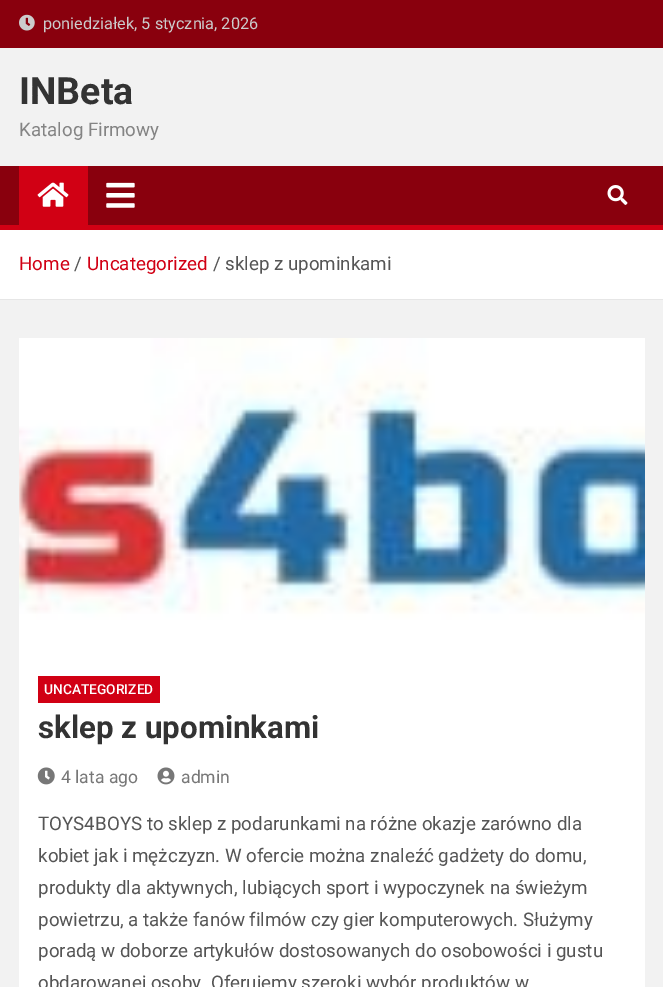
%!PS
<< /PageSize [663 987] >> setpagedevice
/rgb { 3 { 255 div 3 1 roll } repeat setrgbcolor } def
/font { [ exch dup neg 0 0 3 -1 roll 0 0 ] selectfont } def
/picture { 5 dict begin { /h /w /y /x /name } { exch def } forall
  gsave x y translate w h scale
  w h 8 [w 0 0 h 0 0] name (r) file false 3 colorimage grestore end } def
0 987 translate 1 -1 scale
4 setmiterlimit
242 242 242 rgb
0 0 663 987 rectfill
137 0 13 rgb
0 0 663 48 rectfill
(img/1.rgb) 19 14 16 17 picture
0 166 663 59 rectfill
209 0 20 rgb
19 166 69 59 rectfill
(img/2.rgb) 37 182 32 25 picture
(img/3.rgb) 106 182 29 26 picture
(img/4.rgb) 607 185 21 20 picture
[
  [0 225 663 5 209 0 20]
  [0 230 663 69 255 255 255]
  [0 299 663 1 230 230 230]
  [19 651 626 336 255 255 255]
] { aload pop rgb rectfill } forall
(img/5.rgb) 19 338 626 313 picture
209 0 20 rgb
38 676 122 27 rectfill
(img/6.rgb) 37 767 18 18 picture
(img/7.rgb) 157 767 18 18 picture
/Roboto-Regular 16.25 font
204 204 204 rgb
43 29 moveto (poniedziałek, 5 stycznia, 2026) show
/Roboto-Bold 37.5 font
51 51 51 rgb
19 104 moveto (INBeta) show
/Roboto-Regular 18.75 font
132 132 132 rgb
19 136 moveto (Katalog Firmowy) show
209 0 20 rgb
19 270 moveto (Home) show
85 85 85 rgb
74 270 moveto (/) show
209 0 20 rgb
87 270 moveto (Uncategorized) show
85 85 85 rgb
213 270 moveto (/) show
225 270 moveto (sklep z upominkami) show
/Roboto-Medium 13.75 font
255 255 255 rgb
44 694 moveto (UNCATEGORIZED) show
/Roboto-Bold 31.25 font
51 51 51 rgb
38 738 moveto (sklep z upominkami) show
/Roboto-Regular 17.5 font
119 119 119 rgb
61 783 moveto (4 lata ago) show
181 783 moveto (admin) show
/Roboto-Regular 18.75 font
85 85 85 rgb
[
  [(TOYS4BOYS to sklep z podarunkami na różne okazje zarówno dla) 38 830]
  [(kobiet jak i mężczyzn. W ofercie można znaleźć gadżety do domu,) 38 862]
  [(produkty dla aktywnych, lubiących sport i wypoczynek na świeżym) 38 894]
  [(powietrzu, a także fanów filmów czy gier komputerowych. Służymy) 38 926]
  [(poradą w doborze artykułów dostosowanych do osobowości i gustu) 38 957]
  [(obdarowanej osoby. Oferujemy szeroki wybór produktów w) 38 989]
] { aload pop moveto show } forall
showpage
